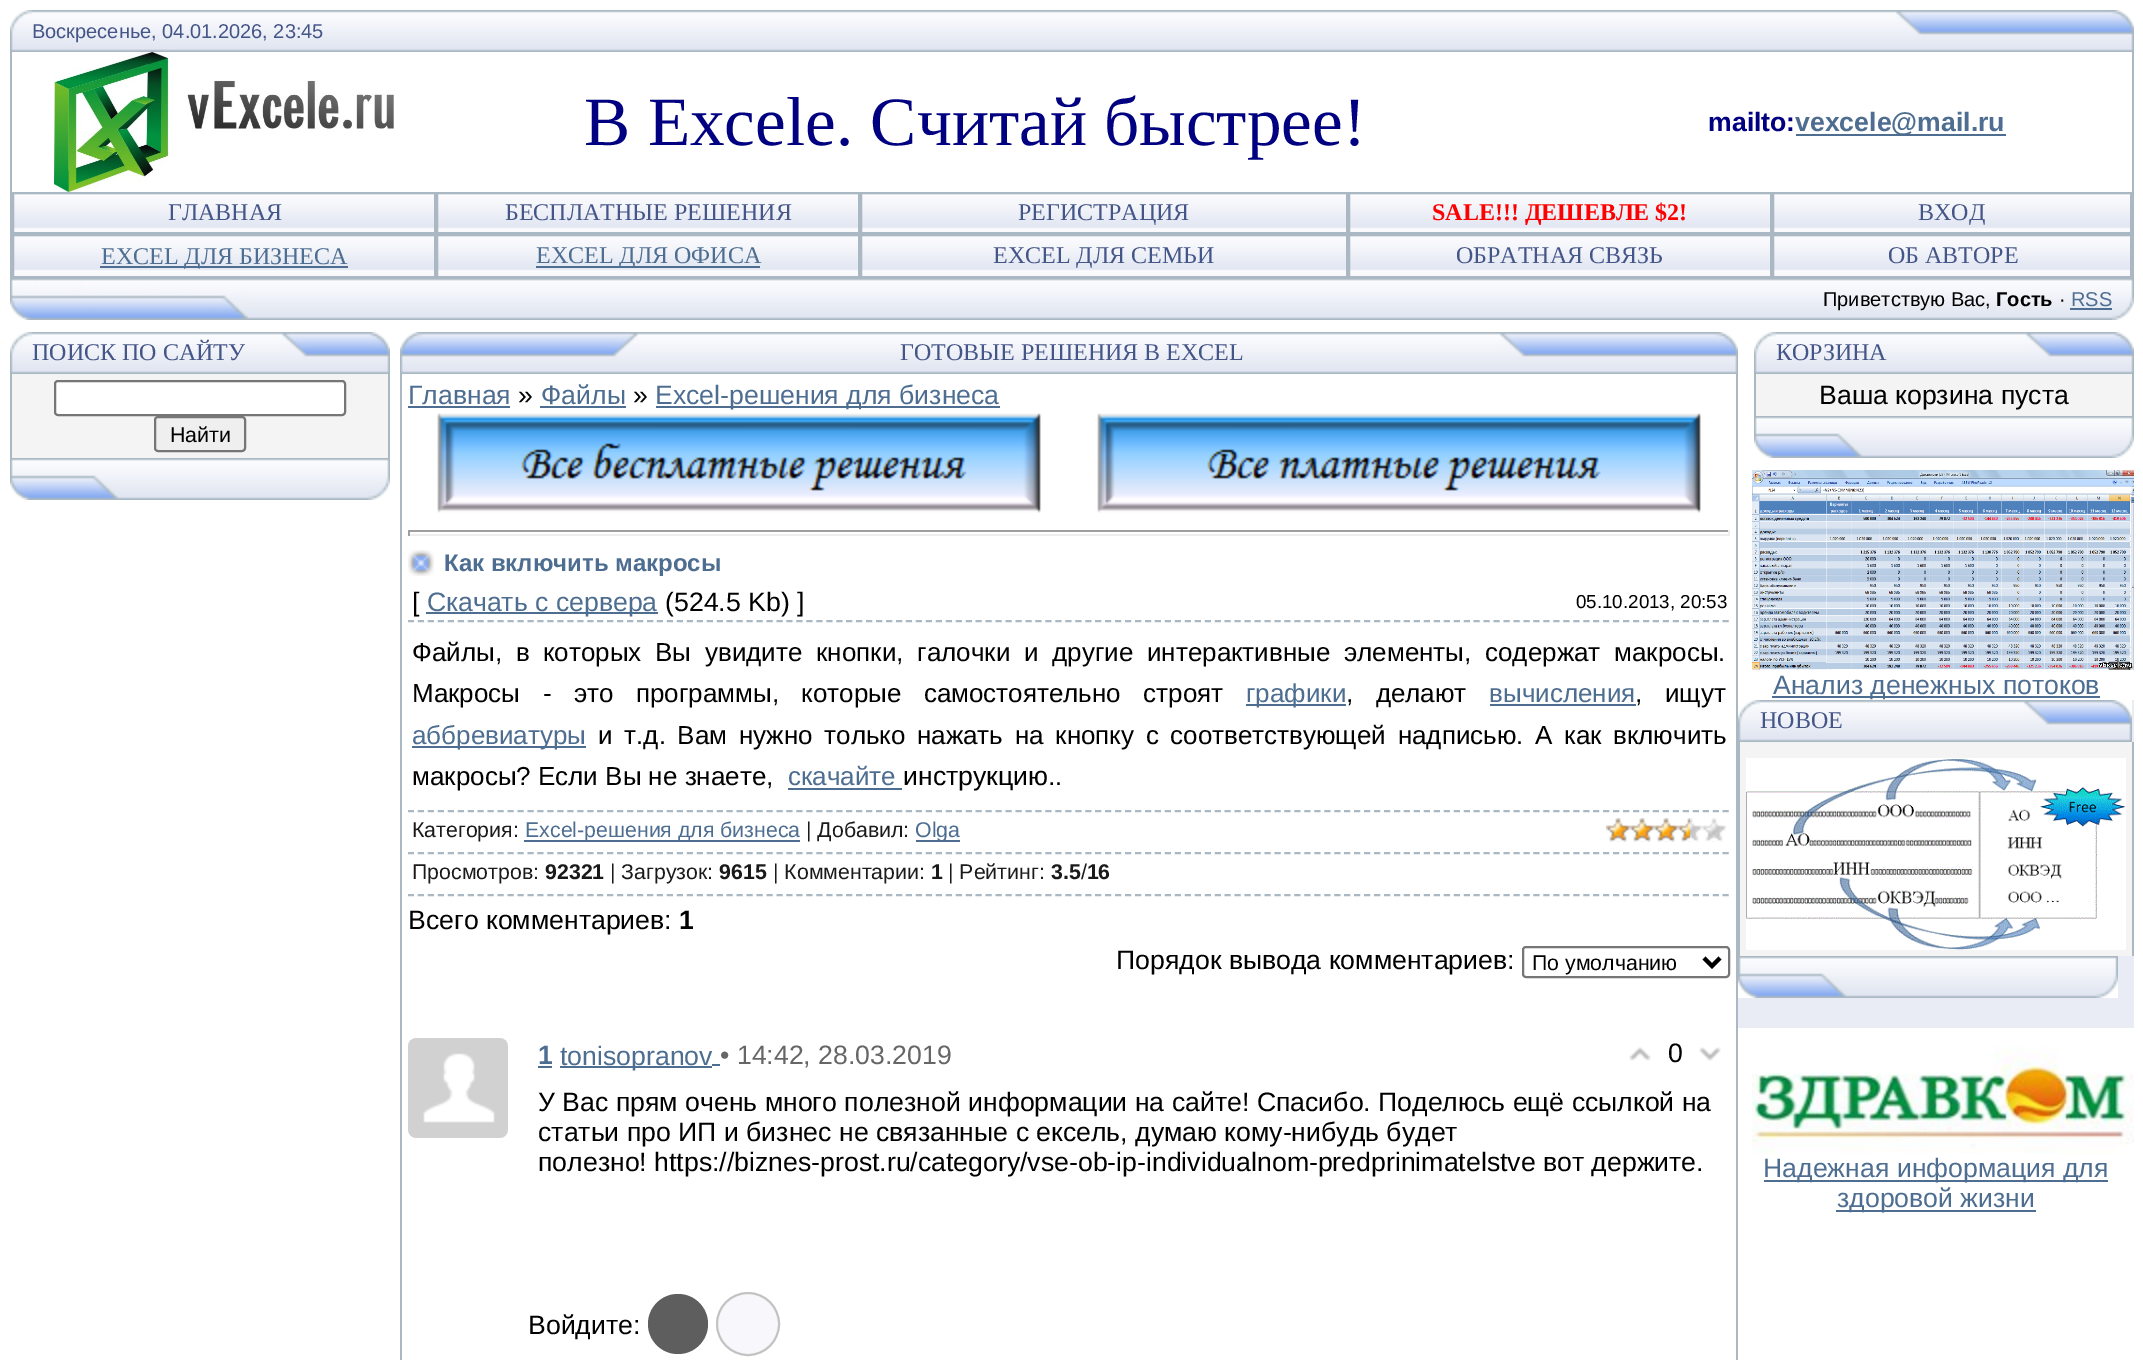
%!PS
<< /PageSize [2143 1360] >> setpagedevice
/rgb { 3 { 255 div 3 1 roll } repeat setrgbcolor } def
/font { [ exch dup neg 0 0 3 -1 roll 0 0 ] selectfont } def
/circle { newpath 0 360 arc closepath } def
/roundrect { 5 dict begin { /r /h /w /y /x } { exch def } forall
  x r add y moveto x w add y 2 copy h add r arct x w add y h add x 1 index r arct
  x y h add x y r arct x y 2 copy exch w add exch r arct closepath end } def
/picture { 5 dict begin { /h /w /y /x /name } { exch def } forall
  gsave x y translate w h scale
  w h 8 [w 0 0 h 0 0] name (r) file false 3 colorimage grestore end } def
0 1360 translate 1 -1 scale
4 setmiterlimit
255 255 255 rgb
0 0 2143 1360 rectfill
(img/1.rgb) 10 10 22 42 picture
(img/2.rgb) 32 10 1864 42 picture
(img/3.rgb) 1896 10 238 42 picture
169 184 194 rgb
2132 52 2 226 rectfill
10 52 2 226 rectfill
(img/4.rgb) 54 52 340 140 picture
77 109 145 rgb
1796 134 210 2 rectfill
(img/5.rgb) 14 194 420 38 picture
169 184 194 rgb
2 setlinewidth
13 193 422 40 rectstroke
(img/5.rgb) 438 194 420 38 picture
437 193 422 40 rectstroke
(img/6.rgb) 862 194 484 38 picture
861 193 486 40 rectstroke
(img/5.rgb) 1350 194 420 38 picture
1349 193 422 40 rectstroke
(img/7.rgb) 1774 194 356 38 picture
1773 193 358 40 rectstroke
(img/8.rgb) 14 236 420 40 picture
13 235 422 42 rectstroke
77 109 145 rgb
100 266 248 2 rectfill
(img/8.rgb) 438 236 420 40 picture
169 184 194 rgb
437 235 422 42 rectstroke
77 109 145 rgb
536 266 224 2 rectfill
(img/9.rgb) 862 236 484 40 picture
169 184 194 rgb
861 235 486 42 rectstroke
(img/8.rgb) 1350 236 420 40 picture
1349 235 422 42 rectstroke
(img/10.rgb) 1774 236 356 40 picture
1773 235 358 42 rectstroke
(img/11.rgb) 10 278 238 42 picture
(img/2.rgb) 248 278 1864 42 picture
77 109 145 rgb
2070 308 42 2 rectfill
(img/12.rgb) 2112 278 22 42 picture
(img/1.rgb) 10 332 22 42 picture
(img/13.rgb) 32 332 250 42 picture
(img/14.rgb) 282 332 108 42 picture
[
  [12 374 376 84 244 244 244]
  [388 374 2 84 169 184 194]
  [10 374 2 84 169 184 194]
] { aload pop rgb rectfill } forall
255 255 255 rgb
55 381 290 34 3 roundrect gsave fill grestore
118 118 118 rgb
stroke
239 239 239 rgb
155 417 90 34 3 roundrect gsave fill grestore
118 118 118 rgb
stroke
(img/15.rgb) 10 458 380 42 picture
(img/16.rgb) 400 332 238 42 picture
(img/17.rgb) 638 332 862 42 picture
(img/3.rgb) 1500 332 238 42 picture
[
  [1736 374 2 986 169 184 194]
  [400 374 2 986 169 184 194]
  [408 406 102 2 77 109 145]
  [540 406 86 2 77 109 145]
  [656 406 344 2 77 109 145]
] { aload pop rgb rectfill } forall
(img/18.rgb) 437 413 604 100 picture
(img/19.rgb) 1097 413 604 100 picture
[
  [408 530 1322 2 159 159 159]
  [1728 530 2 6 238 238 238]
  [408 534 1322 2 238 238 238]
  [408 530 2 6 159 159 159]
] { aload pop rgb rectfill } forall
(img/20.rgb) 408 550 26 26 picture
77 109 145 rgb
426 612 232 2 rectfill
169 184 194 rgb
[6 3.96] 0 setdash
408 621 moveto 1730 621 lineto stroke
[
  [1246 704 100 2 77 109 145]
  [1490 704 146 2 77 109 145]
  [412 746 174 2 77 109 145]
  [788 788 114 2 77 109 145]
] { aload pop rgb rectfill } forall
169 184 194 rgb
408 811 moveto 1730 811 lineto stroke
408 853 moveto 1730 853 lineto stroke
77 109 145 rgb
524 840 276 2 rectfill
916 840 44 2 rectfill
(img/21.rgb) 1606 818 120 24 picture
(img/22.rgb) 1606 818 84 24 picture
169 184 194 rgb
408 895 moveto 1730 895 lineto stroke
118 118 118 rgb
[] 0 setdash
1523 947 206 30 3 roundrect stroke
0 0 0 rgb
4 setlinewidth
1704 958 moveto 1712 966 lineto 1720 958 lineto stroke
(img/23.rgb) 408 1038 100 100 picture
[
  [538 1066 14 2 77 109 145]
  [560 1066 152 2 77 109 145]
  [712 1064 8 2 77 109 145]
] { aload pop rgb rectfill } forall
(img/24.rgb) 1629 1047 22 14 picture
(img/25.rgb) 1699 1047 22 14 picture
94 94 94 rgb
678 1324 30 circle fill
248 248 252 rgb
748 1324 31 circle gsave fill grestore
196 196 196 rgb
2 setlinewidth
stroke
(img/1.rgb) 1754 332 22 42 picture
(img/13.rgb) 1776 332 250 42 picture
(img/14.rgb) 2026 332 108 42 picture
[
  [1756 374 376 42 244 244 244]
  [2132 374 2 42 169 184 194]
  [1754 374 2 42 169 184 194]
] { aload pop rgb rectfill } forall
(img/15.rgb) 1754 416 380 42 picture
(img/26.rgb) 1752 470 382 200 picture
77 109 145 rgb
1772 696 328 2 rectfill
233 236 245 rgb
2132 700 2 42 rectfill
(img/1.rgb) 1738 700 22 42 picture
(img/27.rgb) 1760 700 264 42 picture
(img/14.rgb) 2024 700 108 42 picture
[
  [1740 742 392 214 244 244 244]
  [2132 742 2 214 169 184 194]
  [1738 742 2 214 169 184 194]
] { aload pop rgb rectfill } forall
(img/28.rgb) 1746 758 380 192 picture
233 236 245 rgb
1738 956 396 72 rectfill
(img/15.rgb) 1738 956 380 42 picture
(img/29.rgb) 1752 1046 382 108 picture
77 109 145 rgb
1764 1180 344 2 rectfill
1836 1210 200 2 rectfill
/LiberationSans-Regular 20 font
68 85 136 rgb
32 38 moveto (Воскресенье, 04.01.2026, 23:45) show
/LiberationSerif-Regular 69.25 font
0 0 128 rgb
584 145 moveto (В Excele. Считай быстрее!) show
/LiberationSans-Bold 26.65 font
1708 131 moveto (mailto:) show
77 109 145 rgb
1795 131 moveto (vexcele@mail.ru) show
/LiberationSerif-Regular 24 font
68 85 136 rgb
[
  [(ГЛАВНАЯ) 168 220]
  [(БЕСПЛАТНЫЕ РЕШЕНИЯ) 505 220]
  [(РЕГИСТРАЦИЯ) 1018 220]
] { aload pop moveto show } forall
/LiberationSerif-Bold 24 font
255 0 0 rgb
1432 220 moveto (SALE!!! ДЕШЕВЛЕ $2!) show
/LiberationSerif-Regular 24 font
68 85 136 rgb
1918 220 moveto (ВХОД) show
77 109 145 rgb
101 264 moveto (EXCEL ДЛЯ БИЗНЕСА) show
536 263 moveto (EXCEL ДЛЯ ОФИСА) show
68 85 136 rgb
[
  [(EXCEL ДЛЯ СЕМЬИ) 993 263]
  [(ОБРАТНАЯ СВЯЗЬ) 1456 263]
  [(ОБ АВТОРЕ) 1888 263]
] { aload pop moveto show } forall
/LiberationSans-Regular 20 font
0 0 0 rgb
1823 306 moveto (Приветствую Вас,) show
/LiberationSans-Bold 20 font
1996 306 moveto (Гость) show
/LiberationSans-Regular 20 font
2059 306 moveto (·) show
77 109 145 rgb
2071 306 moveto (RSS) show
/LiberationSerif-Regular 24 font
68 85 136 rgb
32 360 moveto (ПОИСК ПО САЙТУ) show
/LiberationSans-Regular 21.3 font
0 0 0 rgb
170 442 moveto (Найти) show
/LiberationSerif-Regular 24 font
68 85 136 rgb
900 360 moveto (ГОТОВЫЕ РЕШЕНИЯ В EXCEL) show
/LiberationSans-Regular 26.65 font
77 109 145 rgb
408 404 moveto (Главная) show
0 0 0 rgb
518 404 moveto (») show
77 109 145 rgb
541 404 moveto (Файлы) show
0 0 0 rgb
633 404 moveto (») show
77 109 145 rgb
655 404 moveto (Excel-решения для бизнеса) show
/LiberationSans-Bold 24 font
444 571 moveto (Как включить макросы) show
/LiberationSans-Regular 26.65 font
0 0 0 rgb
412 611 moveto ([) show
77 109 145 rgb
427 611 moveto (Скачать с сервера) show
0 0 0 rgb
665 611 moveto (\(524.5 Kb\) ]) show
/LiberationSans-Regular 18.75 font
1576 608 moveto (05.10.2013, 20:53) show
/LiberationSans-Regular 26 font
412 661 moveto 6.5 0 32 (Файлы, в которых Вы увидите кнопки, галочки и другие интерактивные элементы, содержат макросы.) widthshow
412 702 moveto 15.25 0 32 (Макросы - это программы, которые самостоятельно строят) widthshow
77 109 145 rgb
1246 702 moveto (графики) show
0 0 0 rgb
1346 702 moveto 15.25 0 32 (, делают) widthshow
77 109 145 rgb
1489 702 moveto (вычисления) show
0 0 0 rgb
1635 702 moveto 15.25 0 32 (, ищут) widthshow
77 109 145 rgb
412 744 moveto (аббревиатуры) show
0 0 0 rgb
598 744 moveto 4.5 0 32 (и т.д. Вам нужно только нажать на кнопку с соответствующей надписью. А как включить) widthshow
412 785 moveto (макросы? Если Вы не знаете,) show
77 109 145 rgb
788 785 moveto (скачайте) show
/LiberationSans-Regular 26.65 font
0 0 0 rgb
903 785 moveto (инструкцию.) show
/LiberationSans-Regular 26 font
1055 785 moveto (.) show
/LiberationSans-Regular 21.3 font
26 26 26 rgb
412 837 moveto (Категория:) show
77 109 145 rgb
525 837 moveto (Excel-решения для бизнеса) show
26 26 26 rgb
806 837 moveto (| Добавил:) show
77 109 145 rgb
915 837 moveto (Olga) show
26 26 26 rgb
412 879 moveto (Просмотров:) show
/LiberationSans-Bold 21.3 font
545 879 moveto (92321) show
/LiberationSans-Regular 21.3 font
610 879 moveto (| Загрузок:) show
/LiberationSans-Bold 21.3 font
719 879 moveto (9615) show
/LiberationSans-Regular 21.3 font
773 879 moveto (| Комментарии:) show
/LiberationSans-Bold 21.3 font
931 879 moveto (1) show
/LiberationSans-Regular 21.3 font
948 879 moveto (| Рейтинг:) show
/LiberationSans-Bold 21.3 font
1051 879 moveto (3.5 16) show
/LiberationSans-Regular 21.3 font
1081 879 moveto (/) show
/LiberationSans-Regular 26.65 font
0 0 0 rgb
408 929 moveto (Всего комментариев:) show
/LiberationSans-Bold 26.65 font
679 929 moveto (1) show
/LiberationSans-Regular 26.65 font
1116 969 moveto (Порядок вывода комментариев:) show
/LiberationSans-Regular 21.3 font
1532 970 moveto (По умолчанию) show
/LiberationSans-Bold 26.65 font
77 109 145 rgb
538 1064 moveto (1) show
/LiberationSans-Regular 26.65 font
560 1065 moveto (tonisopranov) show
102 102 102 rgb
720 1064 moveto (• 14:42, 28.03.2019) show
0 0 0 rgb
[
  [(0) 1668 1062]
  [(У Вас прям очень много полезной информации на сайте! Спасибо. Поделюсь ещё ссылкой на) 538 1111]
  [(статьи про ИП и бизнес не связанные с ексель, думаю кому-нибудь будет) 538 1141]
  [(полезно! https://biznes-prost.ru/category/vse-ob-ip-individualnom-predprinimatelstve вот держите.) 538 1171]
  [(Войдите:) 528 1334]
] { aload pop moveto show } forall
/LiberationSerif-Regular 24 font
68 85 136 rgb
1776 360 moveto (КОРЗИНА) show
/LiberationSans-Regular 26.65 font
0 0 0 rgb
1819 404 moveto (Ваша корзина пуста) show
77 109 145 rgb
1773 694 moveto (Анализ денежных потоков) show
/LiberationSerif-Regular 24 font
68 85 136 rgb
1760 728 moveto (НОВОЕ) show
/LiberationSans-Regular 26.65 font
77 109 145 rgb
1763 1177 moveto (Надежная информация для) show
1837 1207 moveto (здоровой жизни) show
showpage
